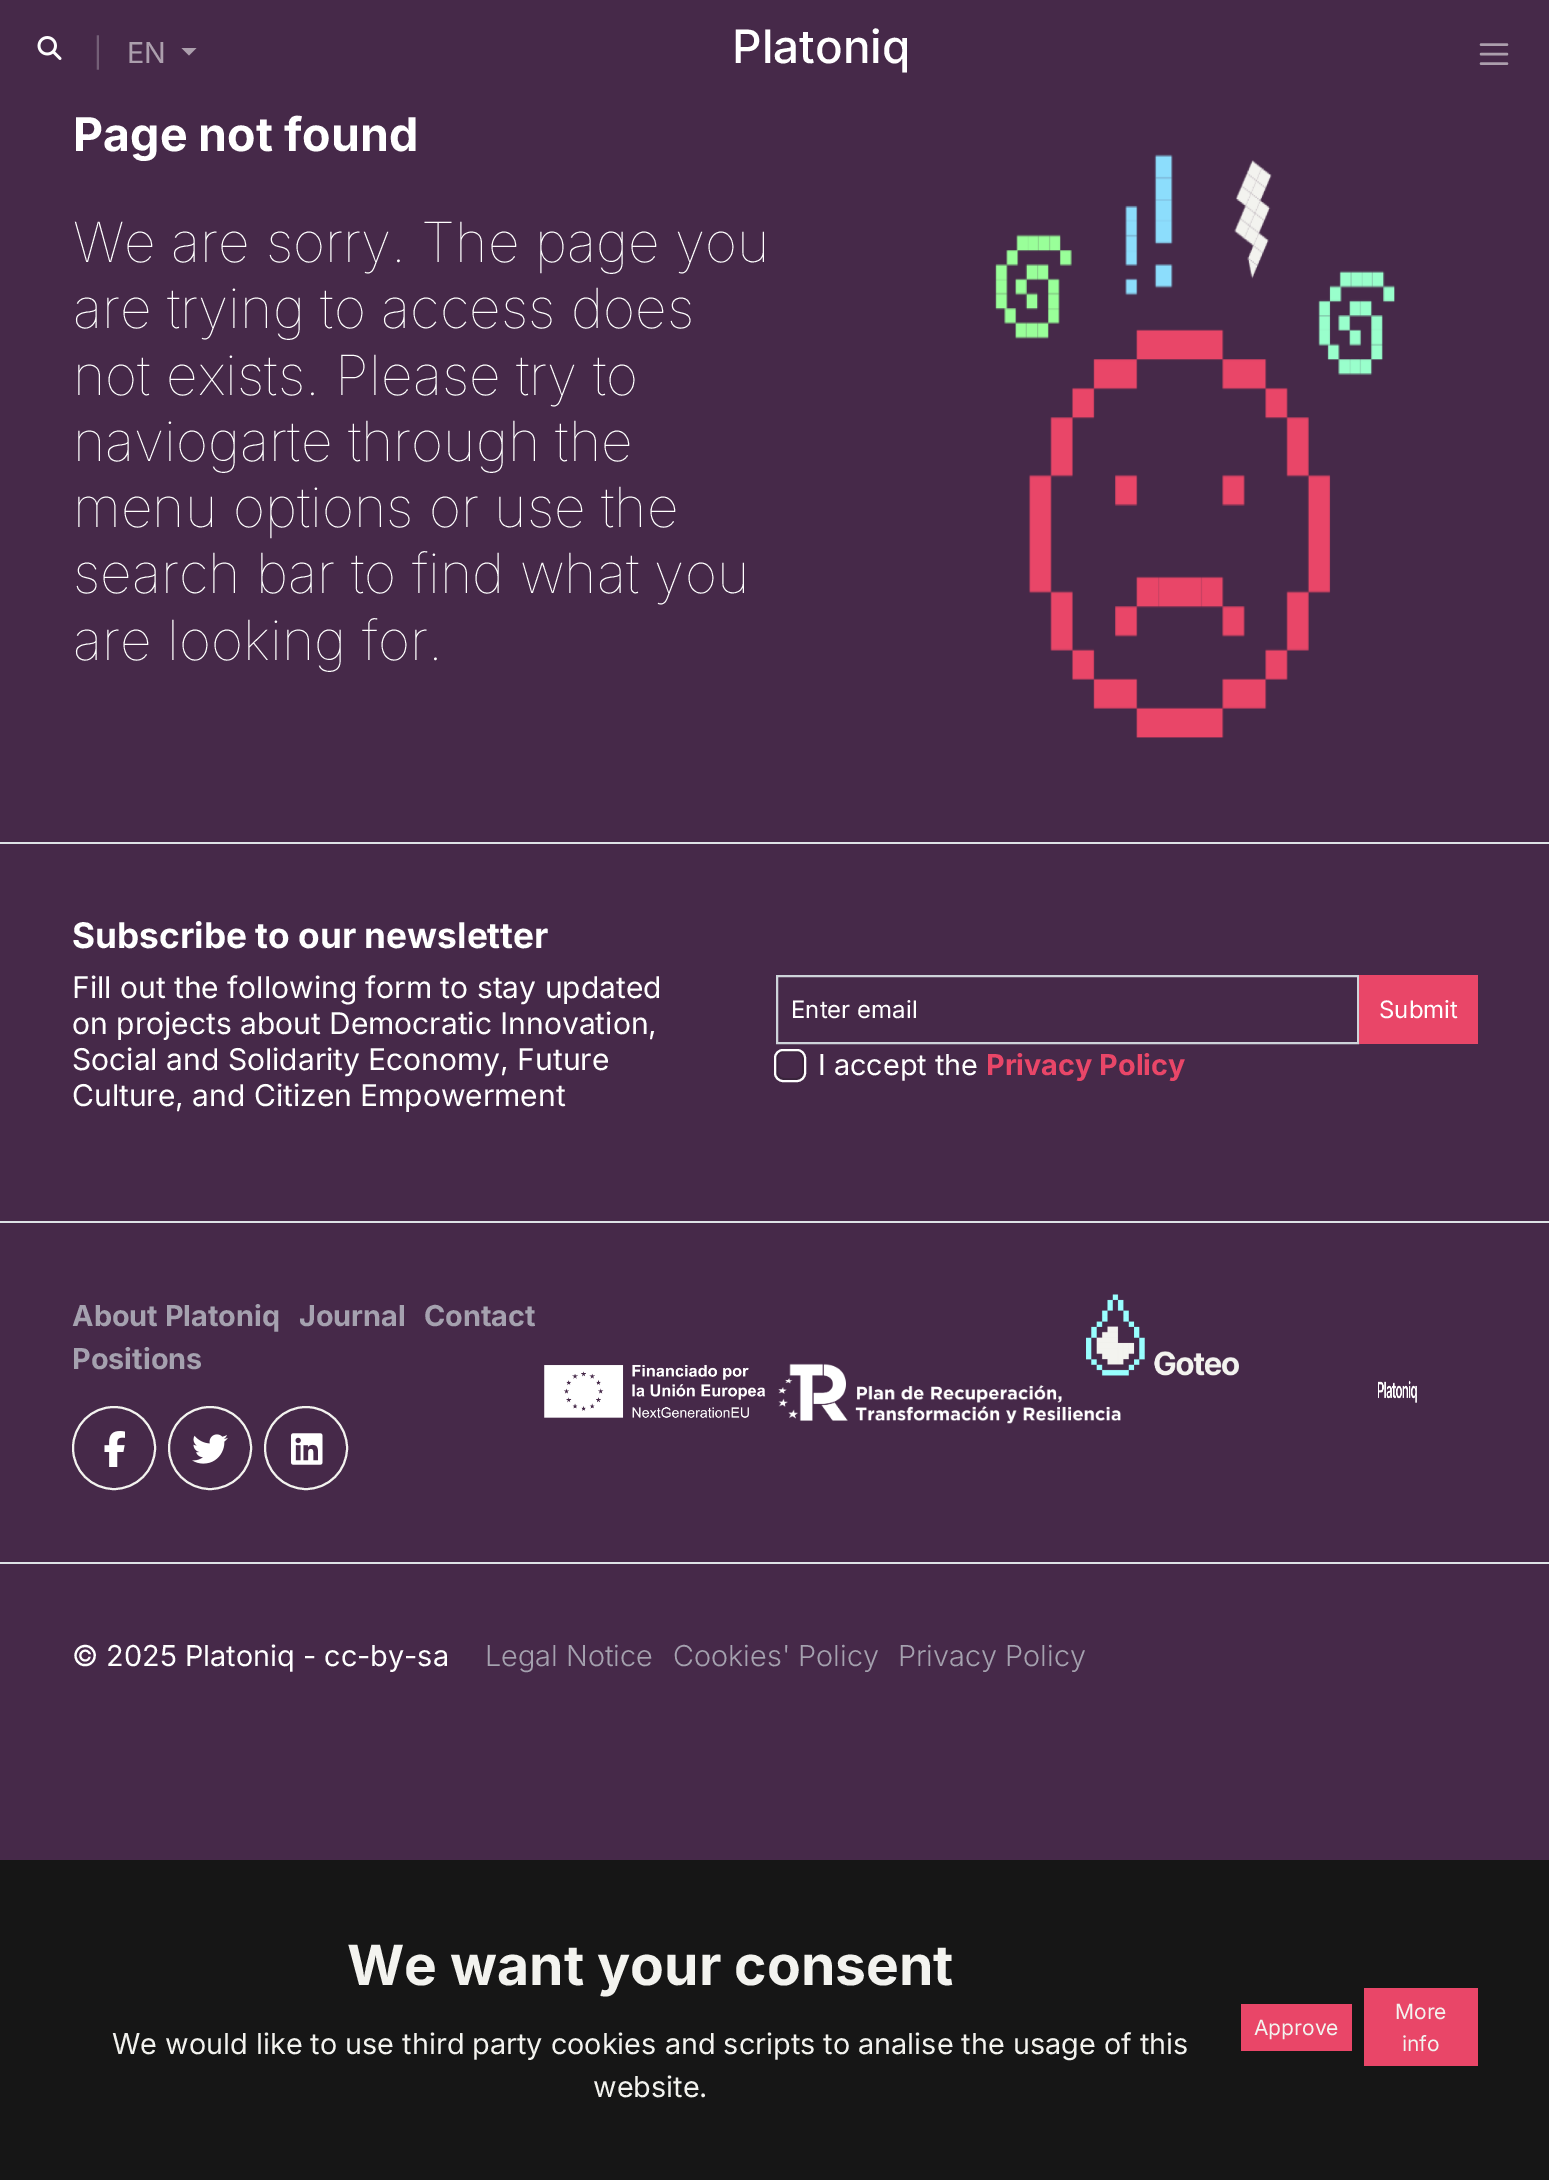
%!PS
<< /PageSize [1549 2180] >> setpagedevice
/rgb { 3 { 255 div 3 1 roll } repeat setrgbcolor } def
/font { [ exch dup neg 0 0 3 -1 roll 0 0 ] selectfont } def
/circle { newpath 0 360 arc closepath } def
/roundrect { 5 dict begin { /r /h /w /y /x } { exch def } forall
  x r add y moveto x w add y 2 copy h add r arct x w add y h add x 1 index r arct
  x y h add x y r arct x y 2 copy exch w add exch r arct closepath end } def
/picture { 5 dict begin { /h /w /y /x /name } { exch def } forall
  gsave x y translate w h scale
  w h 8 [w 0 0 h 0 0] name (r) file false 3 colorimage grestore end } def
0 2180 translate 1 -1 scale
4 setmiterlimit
70 41 73 rgb
0 0 1549 2180 rectfill
(img/1.rgb) 37 36 25 24 picture
172 159 173 rgb
181.5 48 moveto 196.5 48 lineto 189 55.5 lineto closepath fill
2.4 setlinewidth
1 setlinecap
1481 44.5 moveto 1507 44.5 lineto 1481 54 moveto 1507 54 lineto 1481 63.5 moveto 1507 63.5 lineto stroke
(img/2.rgb) 995 154 400 584 picture
222 226 230 rgb
0 842 1549 2 rectfill
0 1221 1549 2 rectfill
206 212 218 rgb
2 setlinewidth
0 setlinecap
777 976 581 67 rectstroke
233 70 104 rgb
1359 975 119 69 rectfill
58 36 60 rgb
777 1051 26 28 7 roundrect stroke
255 255 255 rgb
775 1050 30 31 8 roundrect stroke
222 226 230 rgb
0 1562 1549 2 rectfill
243 243 239 rgb
114 1448 41 circle stroke
(img/3.rgb) 104 1431 21 36 picture
210 1448 41 circle stroke
(img/4.rgb) 192 1434 36 30 picture
306 1448 41 circle stroke
(img/5.rgb) 291 1433 32 32 picture
(img/9.rgb) 778 1363 343 61 picture
(img/6.rgb) 1086 1294 153 82 picture
(img/7.rgb) 1378 1380 39 23 picture
(img/8.rgb) 544 1364 222 54 picture
[
  [0 1860 1549 320 22 22 22]
  [1241 2004 111 47 233 70 104]
  [1364 1988 114 78 233 70 104]
] { aload pop rgb rectfill } forall
/Inter-Regular 28.8 font
116 95 119 rgb
93 63 moveto (|) show
172 159 173 rgb
127 63 moveto (EN) show
/Inter-Medium 46 font
255 255 255 rgb
732 63 moveto (Platoniq) show
/Inter-Bold 46.5 font
73 151 moveto (Page not found) show
/Inter-Thin 55.25 font
[
  [(We are sorry. The page you) 73 262]
  [(are trying to access does) 73 328]
  [(not exists. Please try to) 73 395]
  [(naviogarte through the) 73 461]
  [(menu options or use the) 73 527]
  [(search bar to find what you) 73 593]
  [(are looking for.) 73 660]
] { aload pop moveto show } forall
/Inter-Bold 35.25 font
72 948 moveto (Subscribe to our newsletter) show
/Inter-Regular 30 font
[
  [(Fill out the following form to stay updated) 72 998]
  [(on projects about Democratic Innovation,) 72 1034]
  [(Social and Solidarity Economy, Future) 72 1070]
  [(Culture, and Citizen Empowerment) 72 1106]
] { aload pop moveto show } forall
/Inter-Regular 24 font
791 1018 moveto (Enter email) show
1379 1018 moveto (Submit) show
/Inter-Regular 28.8 font
818 1075 moveto (I accept the) show
/Inter-Bold 28.8 font
233 70 104 rgb
986 1075 moveto (Privacy Policy) show
165 161 175 rgb
[
  [(About Platoniq) 72 1326]
  [(Journal) 299 1326]
  [(Contact) 424 1326]
  [(Positions) 72 1369]
] { aload pop moveto show } forall
/Inter-Regular 28.8 font
255 255 255 rgb
72 1666 moveto (© 2025 Platoniq - cc-by-sa) show
/Inter-Light 28.8 font
165 161 175 rgb
[
  [(Legal Notice) 485 1666]
  [(Cookies' Policy) 673 1666]
  [(Privacy Policy) 898 1666]
] { aload pop moveto show } forall
/Inter-Bold 55.25 font
243 243 239 rgb
347 1985 moveto (We want your consent) show
/Inter-Regular 28.8 font
112 2054 moveto (We would like to use third party cookies and scripts to analise the usage of this) show
593 2097 moveto (website.) show
/Inter-Regular 21 font
[
  [(Approve) 1254 2035]
  [(More) 1395 2019]
  [(info) 1402 2051]
] { aload pop moveto show } forall
showpage
